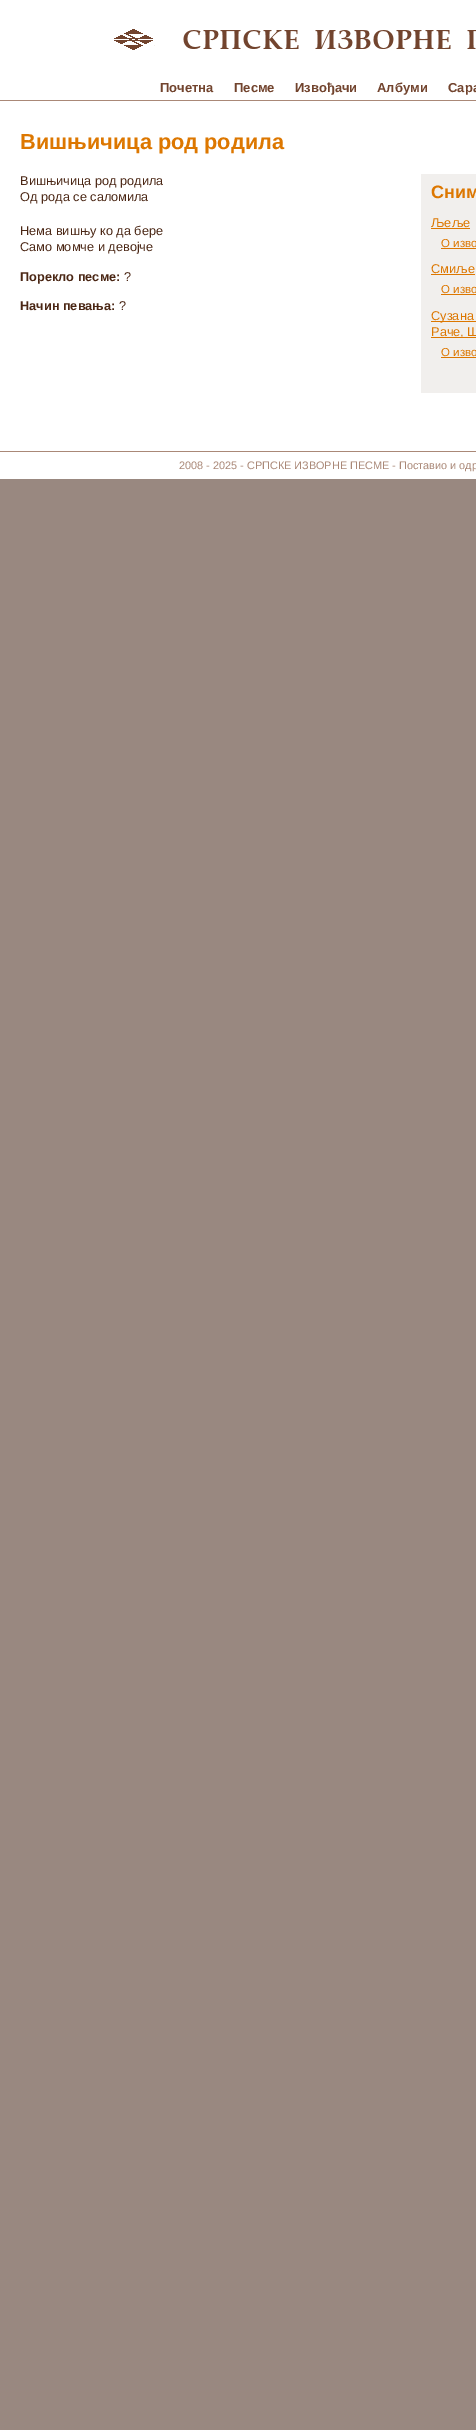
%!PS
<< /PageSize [476 2430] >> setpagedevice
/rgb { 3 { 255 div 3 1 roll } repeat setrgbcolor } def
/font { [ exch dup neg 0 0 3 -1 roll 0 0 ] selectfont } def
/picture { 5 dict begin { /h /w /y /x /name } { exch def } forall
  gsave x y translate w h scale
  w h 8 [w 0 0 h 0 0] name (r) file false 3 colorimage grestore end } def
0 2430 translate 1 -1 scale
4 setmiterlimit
153 136 128 rgb
0 0 476 2430 rectfill
255 255 255 rgb
0 0 476 479 rectfill
(img/1.rgb) 114 29 362 21 picture
[
  [0 100 476 1 170 136 119]
  [421 174 55 219 241 239 237]
  [431 228 39 1 221 119 0]
  [441 248 35 1 221 119 0]
  [431 274 44 1 221 119 0]
  [441 294 35 1 221 119 0]
  [431 321 45 1 221 119 0]
  [431 337 45 1 221 119 0]
  [441 357 35 1 221 119 0]
  [0 451 476 1 170 136 119]
] { aload pop rgb rectfill } forall
/LiberationSans-Bold 13 font
114 68 46 rgb
[
  [(Почетна) 160 92]
  [(Песме) 234 92]
  [(Извођачи) 295 92]
  [(Албуми) 377 92]
  [(Сара) 448 92]
] { aload pop moveto show } forall
/LiberationSans-Bold 21.75 font
221 119 0 rgb
20 149 moveto (Вишњичица род родила) show
/LiberationSans-Regular 12.75 font
75 39 21 rgb
[
  [(Вишњичица род родила) 20 185]
  [(Од рода се саломила) 20 201]
  [(Нема вишњу ко да бере) 20 235]
  [(Само момче и девојче) 20 251]
] { aload pop moveto show } forall
/LiberationSans-Bold 12.75 font
20 281 moveto (Порекло песме:) show
/LiberationSans-Regular 12.75 font
124 281 moveto (?) show
/LiberationSans-Bold 12.75 font
20 310 moveto (Начин певања:) show
/LiberationSans-Regular 12.75 font
119 310 moveto (?) show
/LiberationSans-Bold 18 font
221 119 0 rgb
431 198 moveto (Сним) show
/LiberationSans-Regular 12.75 font
431 227 moveto (Љеље) show
/LiberationSans-Regular 11.5 font
441 247 moveto (О изво) show
/LiberationSans-Regular 12.75 font
431 273 moveto (Смиље) show
/LiberationSans-Regular 11.5 font
441 293 moveto (О изво) show
/LiberationSans-Regular 12.75 font
431 320 moveto (Сузана) show
431 336 moveto (Раче, Ш) show
/LiberationSans-Regular 11.5 font
441 356 moveto (О изво) show
/LiberationSans-Regular 10.9 font
170 136 119 rgb
179 469 moveto (2008 - 2025 - СРПСКЕ ИЗВОРНЕ ПЕСМЕ - Поставио и одр) show
showpage
